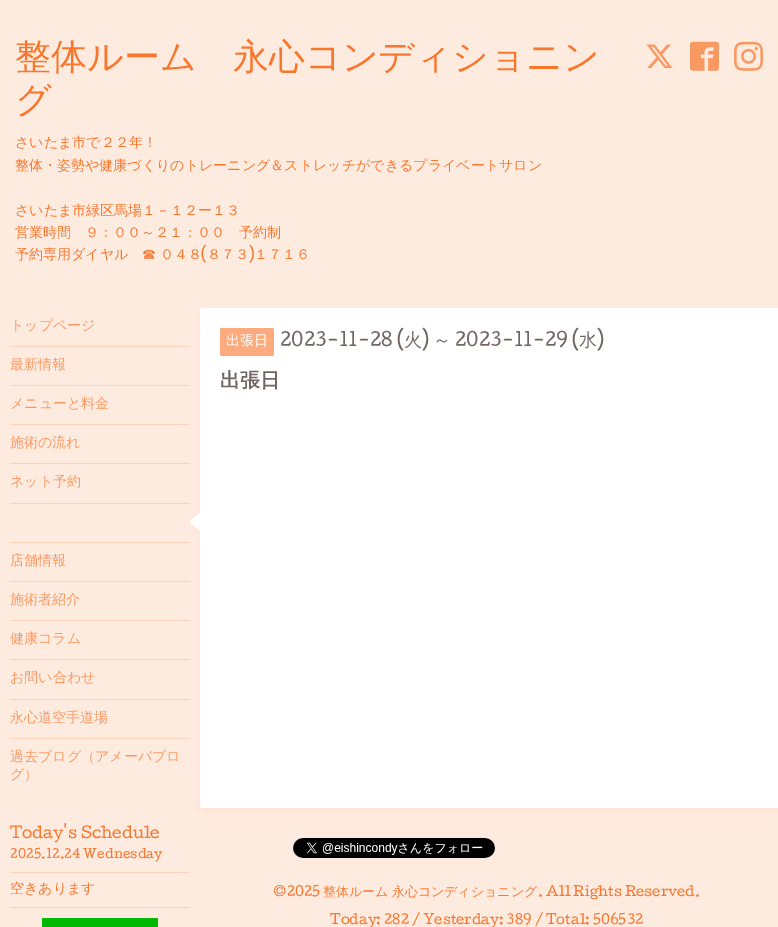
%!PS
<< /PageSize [778 927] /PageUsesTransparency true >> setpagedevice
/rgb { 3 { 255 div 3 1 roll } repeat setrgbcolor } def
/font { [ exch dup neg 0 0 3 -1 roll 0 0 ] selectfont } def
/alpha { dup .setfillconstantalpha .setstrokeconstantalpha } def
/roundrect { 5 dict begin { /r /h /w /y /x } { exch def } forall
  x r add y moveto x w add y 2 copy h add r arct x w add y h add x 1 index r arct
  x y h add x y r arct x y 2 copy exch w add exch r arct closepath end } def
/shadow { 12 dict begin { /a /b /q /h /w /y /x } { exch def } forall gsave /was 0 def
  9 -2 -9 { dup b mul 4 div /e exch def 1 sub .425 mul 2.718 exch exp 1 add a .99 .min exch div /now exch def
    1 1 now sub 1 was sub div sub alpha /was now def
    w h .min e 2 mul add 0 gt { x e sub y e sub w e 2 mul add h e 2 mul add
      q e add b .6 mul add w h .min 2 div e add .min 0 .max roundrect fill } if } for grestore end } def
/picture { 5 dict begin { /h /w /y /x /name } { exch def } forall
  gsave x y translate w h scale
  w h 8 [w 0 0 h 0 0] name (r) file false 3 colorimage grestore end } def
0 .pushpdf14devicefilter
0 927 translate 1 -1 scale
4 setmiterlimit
254 235 224 rgb
0 0 778 927 rectfill
(img/1.rgb) 646 44 27 25 picture
(img/2.rgb) 690 41 29 30 picture
(img/3.rgb) 734 41 29 30 picture
253 209 184 rgb
200 311 578 500 3 5 0.4 shadow
[
  [10 346 180 1 252 210 186]
  [10 385 180 1 252 210 186]
  [10 424 180 1 252 210 186]
  [10 463 180 1 252 210 186]
] { aload pop rgb rectfill } forall
(img/4.rgb) 190 513 10 18 picture
[
  [10 503 180 1 252 210 186]
  [10 542 180 1 252 210 186]
  [10 581 180 1 252 210 186]
  [10 620 180 1 252 210 186]
  [10 659 180 1 252 210 186]
  [10 699 180 1 252 210 186]
  [10 738 180 1 252 210 186]
  [10 872 180 1 252 210 186]
  [10 907 180 1 252 210 186]
  [42 918 116 9 0 185 0]
] { aload pop rgb rectfill } forall
255 255 255 rgb
203 308 moveto 778 308 lineto 778 808 lineto 203 808 lineto 201.5 808 200 806.5 200 805 curveto 200 311 lineto 200 309.5 201.5 308 203 308 curveto closepath fill
251 171 125 rgb
220 328 54 28 2 roundrect fill
(img/5.rgb) 293 838 202 20 picture
/WenQuanYiZenHei-Medium 36 font
248 119 45 rgb
15 69 moveto (整体ルーム　永心コンディショニン) show
15 112 moveto (グ) show
/WenQuanYiZenHei-Medium 14 font
[
  [(さいたま市で２２年！) 15 147]
  [(整体・姿勢や健康づくりのトレーニング＆ストレッチができるプライベートサロン) 15 170]
  [(さいたま市緑区馬場１－１２ー１３) 15 215]
  [(営業時間　９：００～２１：００　予約制) 15 237]
] { aload pop moveto show } forall
15 259 moveto -1 0 32 (予約専用ダイヤル　☎ ０４８) widthshow
/Cutive-Regular 14 font
201 259 moveto (\() show
/WenQuanYiZenHei-Medium 14 font
207 259 moveto (８７３) show
/Cutive-Regular 14 font
249 259 moveto (\)) show
/WenQuanYiZenHei-Medium 14 font
254 259 moveto (１７１６) show
249 153 98 rgb
[
  [(トップページ) 10 330]
  [(最新情報) 10 369]
  [(メニューと料金) 10 408]
  [(施術の流れ) 10 447]
  [(ネット予約) 10 486]
  [(店舗情報) 10 565]
  [(施術者紹介) 10 604]
  [(健康コラム) 10 643]
  [(お問い合わせ) 10 682]
  [(永心道空手道場) 10 722]
  [(過去ブログ（アメーバブロ) 10 761]
  [(グ）) 10 779]
] { aload pop moveto show } forall
/Cutive-Regular 15 font
248 119 45 rgb
10 838 moveto (Today's Schedule) show
/Cutive-Regular 12 font
10 858 moveto (2025.12.24 Wednesday) show
/WenQuanYiZenHei-Medium 14 font
10 893 moveto (空きあります) show
255 255 255 rgb
226 345 moveto (出張日) show
/Cutive-Regular 18 font
113 102 99 rgb
280 346 moveto (2023-11-28 \() show
/WenQuanYiZenHei-Medium 18 font
404 346 moveto (火) show
/Cutive-Regular 18 font
422 346 moveto (\)) show
/WenQuanYiZenHei-Medium 18 font
433 346 moveto (～) show
/Cutive-Regular 18 font
455 346 moveto (2023-11-29 \() show
/WenQuanYiZenHei-Medium 18 font
579 346 moveto (水) show
/Cutive-Regular 18 font
597 346 moveto (\)) show
/WenQuanYiZenHei-Bold 20 font
220 387 moveto (出張日) show
/Cutive-Regular 13 font
248 119 45 rgb
273 896 moveto (©2025) show
/WenQuanYiZenHei-Medium 13 font
323 896 moveto -1 0 32 (整体ルーム 永心コンディショニング) widthshow
/Cutive-Regular 13 font
538 896 moveto (. All Rights Reserved.) show
330 924 moveto (Today: 282 / Yesterday: 389 / Total: 506532) show
.poppdf14devicefilter showpage
